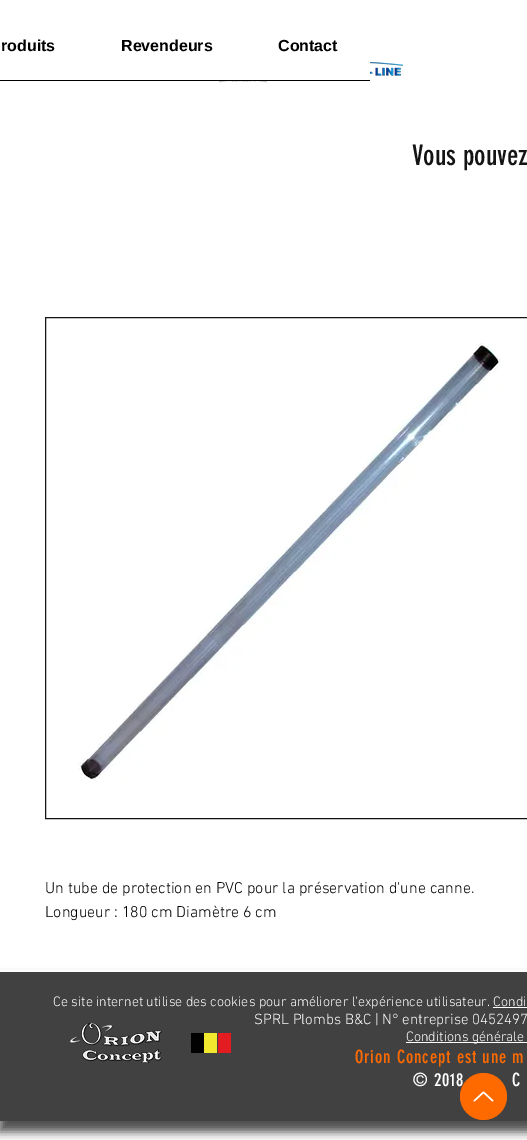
%!PS
<< /PageSize [527 1140] /PageUsesTransparency true >> setpagedevice
/rgb { 3 { 255 div 3 1 roll } repeat setrgbcolor } def
/font { [ exch dup neg 0 0 3 -1 roll 0 0 ] selectfont } def
/alpha { dup .setfillconstantalpha .setstrokeconstantalpha } def
/circle { newpath 0 360 arc closepath } def
/roundrect { 5 dict begin { /r /h /w /y /x } { exch def } forall
  x r add y moveto x w add y 2 copy h add r arct x w add y h add x 1 index r arct
  x y h add x y r arct x y 2 copy exch w add exch r arct closepath end } def
/shadow { 12 dict begin { /a /b /q /h /w /y /x } { exch def } forall gsave /was 0 def
  9 -2 -9 { dup b mul 4 div /e exch def 1 sub .425 mul 2.718 exch exp 1 add a .99 .min exch div /now exch def
    1 1 now sub 1 was sub div sub alpha /was now def
    w h .min e 2 mul add 0 gt { x e sub y e sub w e 2 mul add h e 2 mul add
      q e add b .6 mul add w h .min 2 div e add .min 0 .max roundrect fill } if } for grestore end } def
/picture { 5 dict begin { /h /w /y /x /name } { exch def } forall
  gsave x y translate w h scale
  w h 8 [w 0 0 h 0 0] name (r) file false 3 colorimage grestore end } def
0 .pushpdf14devicefilter
0 1140 translate 1 -1 scale
4 setmiterlimit
255 255 255 rgb
0 0 527 1140 rectfill
0 0 0 rgb
0 80 370 1 rectfill
(img/1.rgb) 370 62 33 14 picture
(img/2.rgb) 219 81 48 2 picture
20 20 20 rgb
45.5 317.5 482 501 rectstroke
(img/3.rgb) 78 343 423 438 picture
0 0 0 rgb
-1 979 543 153 0 5 0.7 shadow
[
  [0 972 527 149 65 65 65]
  [0 970 527 2 255 255 255]
  [493 1007 34 1 255 255 255]
  [406 1042 121 1 255 255 255]
] { aload pop rgb rectfill } forall
(img/4.rgb) 70 1023 92 41 picture
[
  [191 1033 13 20 2 2 2]
  [204 1033 13 20 242 232 46]
  [218 1033 13 20 226 28 33]
] { aload pop rgb rectfill } forall
/LiberationSans-Bold 16 font
0 0 0 rgb
[
  [(roduits) 1 51]
  [(Revendeurs) 121 51]
  [(Contact) 278 51]
] { aload pop moveto show } forall
/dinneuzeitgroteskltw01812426-Regular 28 font
20 20 20 rgb
412 165 moveto (Vous pouvez) show
/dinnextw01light-Light 16 font
0 0 0 rgb
45 893 moveto (Un tube de protection en PVC pour la préservation d'une canne.) show
45 917 moveto (Longueur : 180 cm Diamètre 6 cm) show
/dinnextw01light-Light 14 font
255 255 255 rgb
53 1006 moveto (Ce site internet utilise des cookies pour améliorer l'expérience utilisateur. Condi) show
/dinnextw01light-Light 15 font
254 1024 moveto (SPRL Plombs B&C | N° entreprise 0452497) show
/dinnextw01light-Light 14 font
406 1041 moveto (Conditions générale) show
/dinneuzeitgroteskltw01812426-Regular 18 font
255 106 0 rgb
355 1063 moveto 0.9 0 (Orion Concept est une m) ashow
255 255 255 rgb
413 1086 moveto 0.9 0 (© 2018) ashow
512 1086 moveto 0.9 0 (C) ashow
255 106 0 rgb
483.5 1096.5 23.5 circle fill
(img/5.rgb) 473 1091 21 11 picture
.poppdf14devicefilter showpage
